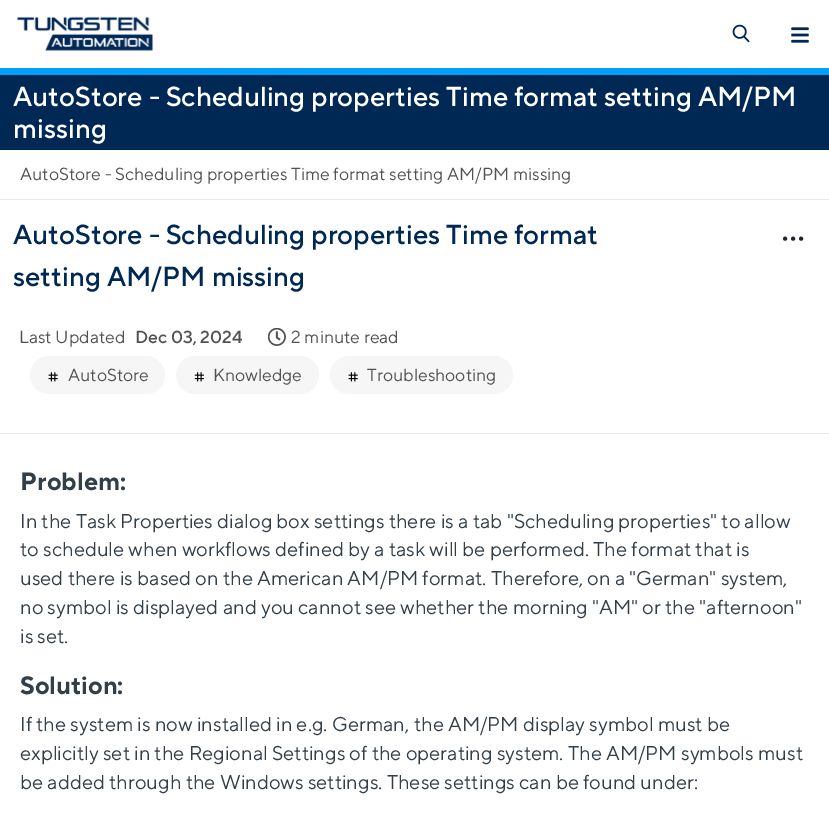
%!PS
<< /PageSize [829 815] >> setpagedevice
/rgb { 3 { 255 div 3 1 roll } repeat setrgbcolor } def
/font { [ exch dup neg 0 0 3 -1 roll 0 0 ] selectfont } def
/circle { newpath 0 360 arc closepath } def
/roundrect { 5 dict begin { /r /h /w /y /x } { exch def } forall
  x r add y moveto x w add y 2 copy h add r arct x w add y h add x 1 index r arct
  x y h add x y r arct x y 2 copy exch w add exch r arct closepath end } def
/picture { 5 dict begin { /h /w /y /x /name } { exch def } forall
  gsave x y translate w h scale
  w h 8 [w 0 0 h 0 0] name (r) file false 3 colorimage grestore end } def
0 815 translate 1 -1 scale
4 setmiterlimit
255 255 255 rgb
0 0 829 815 rectfill
0 160 251 rgb
0 68 829 7 rectfill
(img/1.rgb) 16 16 137 35 picture
(img/2.rgb) 732 24 18 19 picture
(img/3.rgb) 791 27 18 16 picture
[
  [0 75 829 75 0 40 84]
  [0 199 829 1 233 233 236]
  [0 433 829 1 233 233 236]
] { aload pop rgb rectfill } forall
33 37 41 rgb
785.1 238.7 2 circle fill
793.1 238.7 2 circle fill
801.1 238.7 2 circle fill
(img/4.rgb) 268 328 18 18 picture
246 246 246 rgb
30 356 135 38 19 roundrect fill
(img/5.rgb) 48 372 10 10 picture
176 356 143 38 19 roundrect fill
(img/6.rgb) 194 372 10 10 picture
330 356 183 38 19 roundrect fill
(img/5.rgb) 348 372 10 10 picture
/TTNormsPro-Medium 27.5 font
255 255 255 rgb
13 106 moveto (AutoStore - Scheduling properties Time format setting AM/PM) show
13 138 moveto (missing) show
/TTNormsPro-Regular 17.5 font
82 82 82 rgb
20 180 moveto (AutoStore - Scheduling properties Time format setting AM/PM missing) show
/TTNormsPro-Medium 27.5 font
0 40 84 rgb
13 244 moveto (AutoStore - Scheduling properties Time format) show
13 286 moveto (setting AM/PM missing) show
/TTNormsPro-Regular 17.5 font
82 82 82 rgb
19 343 moveto (Last Updated) show
/TTNormsPro-Medium 17.5 font
135 343 moveto (Dec 03, 2024) show
/TTNormsPro-Regular 17.5 font
[
  [(2 minute read) 291 343]
  [(AutoStore) 68 381]
  [(Knowledge) 213 381]
  [(Troubleshooting) 367 381]
] { aload pop moveto show } forall
/TTNormsPro-Bold 25 font
50 62 72 rgb
20 490 moveto (Problem:) show
/TTNormsPro-Regular 20 font
[
  [(In the Task Properties dialog box settings there is a tab "Scheduling properties" to allow) 20 528]
  [(to schedule when workflows defined by a task will be performed. The format that is) 20 556]
  [(used there is based on the American AM/PM format. Therefore, on a "German" system,) 20 585]
  [(no symbol is displayed and you cannot see whether the morning "AM" or the "afternoon") 20 614]
  [(is set.) 20 643]
] { aload pop moveto show } forall
/TTNormsPro-Bold 25 font
20 694 moveto (Solution:) show
/TTNormsPro-Regular 20 font
[
  [(If the system is now installed in e.g. German, the AM/PM display symbol must be) 20 731]
  [(explicitly set in the Regional Settings of the operating system. The AM/PM symbols must) 20 760]
  [(be added through the Windows settings. These settings can be found under:) 20 789]
] { aload pop moveto show } forall
showpage
